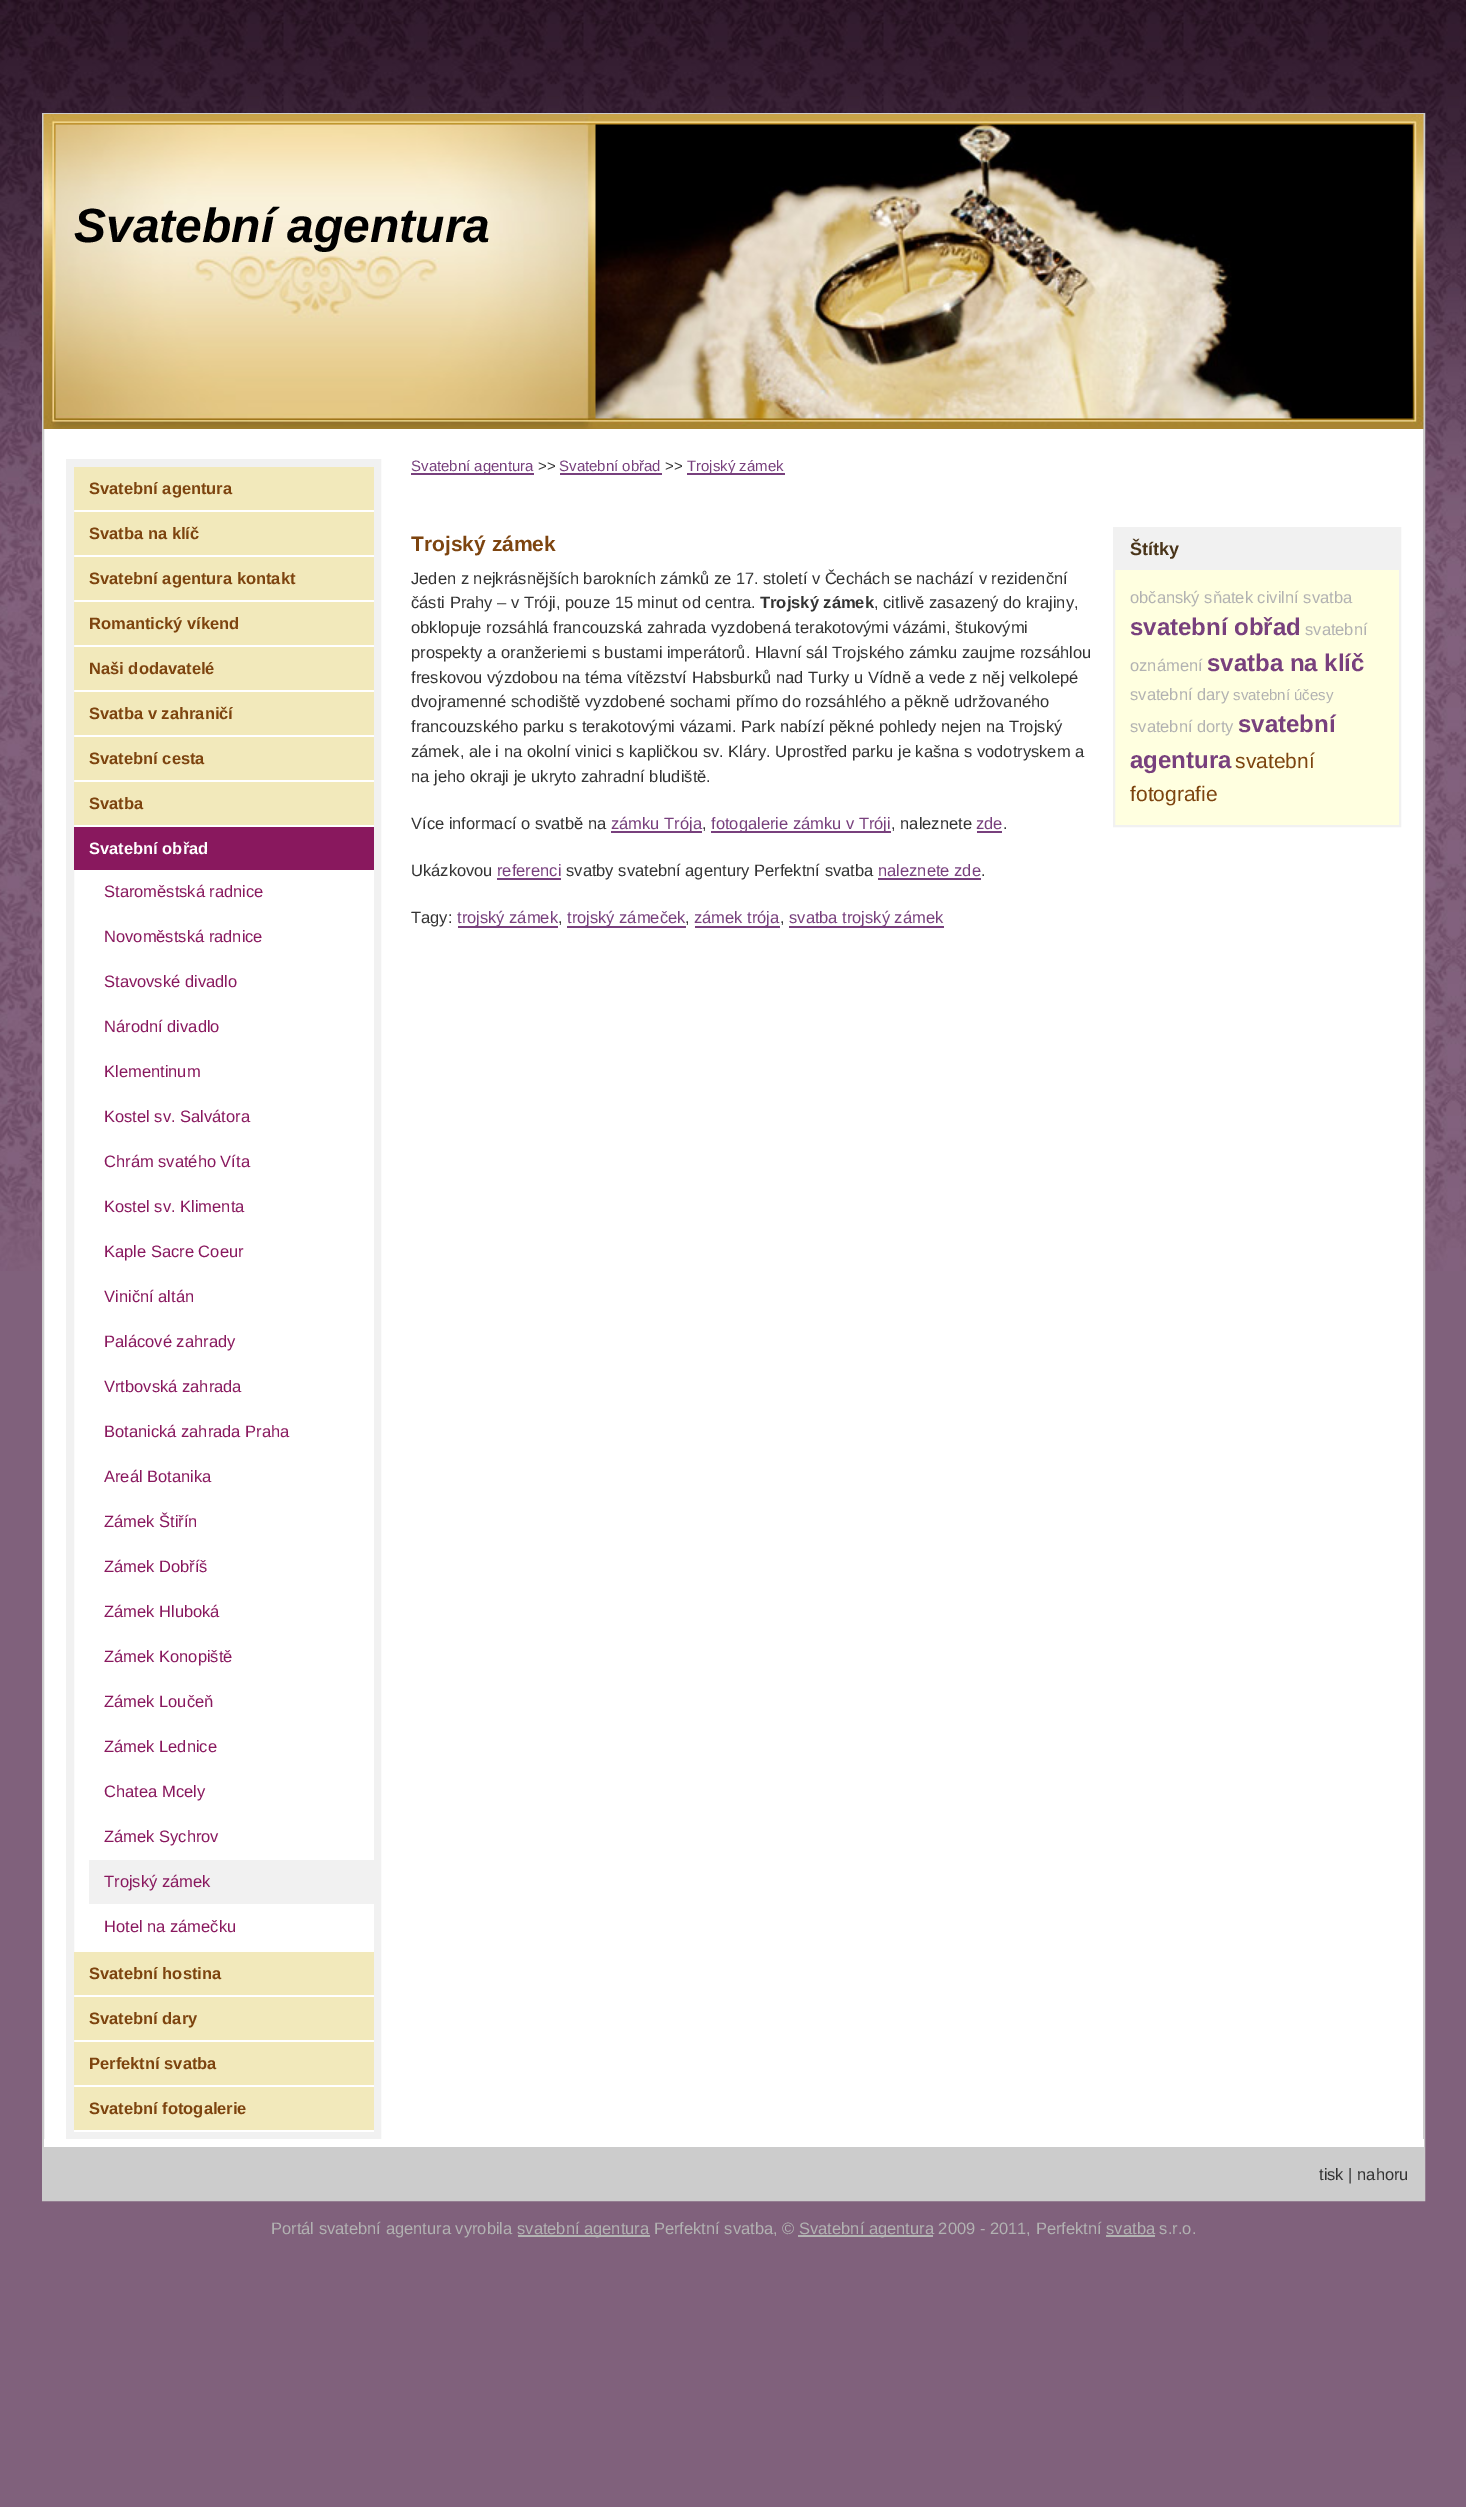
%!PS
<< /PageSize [1466 2507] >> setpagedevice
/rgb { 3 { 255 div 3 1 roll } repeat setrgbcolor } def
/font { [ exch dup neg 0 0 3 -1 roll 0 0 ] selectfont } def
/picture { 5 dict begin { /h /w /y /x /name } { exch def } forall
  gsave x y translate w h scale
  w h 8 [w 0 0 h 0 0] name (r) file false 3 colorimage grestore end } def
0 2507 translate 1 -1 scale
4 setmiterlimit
128 97 124 rgb
0 0 1466 2507 rectfill
(img/1.rgb) 0 0 1466 1271 picture
255 255 255 rgb
44 429 1379 1710 rectfill
204 204 204 rgb
2 setlinewidth
43 114 1381 2086 rectstroke
(img/2.rgb) 43 114 1381 315 picture
241 241 241 rgb
8 setlinewidth
70 463 307 1672 rectstroke
[
  [373 510 1 2 255 255 255]
  [74 467 300 43 242 233 187]
  [373 555 1 2 255 255 255]
  [74 512 300 43 242 233 187]
  [373 600 1 2 255 255 255]
  [74 557 300 43 242 233 187]
  [373 645 1 2 255 255 255]
  [74 602 300 43 242 233 187]
  [373 690 1 2 255 255 255]
  [74 647 300 43 242 233 187]
  [373 735 1 2 255 255 255]
  [74 692 300 43 242 233 187]
  [373 780 1 2 255 255 255]
  [74 737 300 43 242 233 187]
  [373 825 1 2 255 255 255]
  [74 782 300 43 242 233 187]
  [373 1949 1 3 255 255 255]
  [74 827 300 43 137 24 94]
  [373 870 1 45 255 255 255]
  [373 915 1 45 255 255 255]
  [373 960 1 45 255 255 255]
  [373 1005 1 45 255 255 255]
  [373 1050 1 45 255 255 255]
  [373 1095 1 45 255 255 255]
  [373 1140 1 45 255 255 255]
  [373 1185 1 45 255 255 255]
  [373 1230 1 45 255 255 255]
  [373 1275 1 45 255 255 255]
  [373 1320 1 45 255 255 255]
  [373 1365 1 45 255 255 255]
  [373 1410 1 45 255 255 255]
  [373 1455 1 45 255 255 255]
  [373 1500 1 45 255 255 255]
  [373 1545 1 45 255 255 255]
  [373 1590 1 45 255 255 255]
  [373 1635 1 45 255 255 255]
  [373 1680 1 45 255 255 255]
  [373 1725 1 45 255 255 255]
  [373 1770 1 45 255 255 255]
  [373 1815 1 45 255 255 255]
  [373 1904 1 45 255 255 255]
  [89 1860 284 44 241 241 241]
  [373 1995 1 2 255 255 255]
  [74 1952 300 43 242 233 187]
  [373 2040 1 2 255 255 255]
  [74 1997 300 43 242 233 187]
  [373 2085 1 2 255 255 255]
  [74 2042 300 43 242 233 187]
  [74 2130 300 2 255 255 255]
  [74 2087 300 43 242 233 187]
  [411 473 123 2 120 64 125]
  [560 473 102 2 120 64 125]
  [687 473 98 2 120 64 125]
  [611 831 91 2 120 64 125]
  [711 831 180 2 120 64 125]
  [977 831 25 2 120 64 125]
  [497 878 64 2 120 64 125]
  [878 878 103 2 120 64 125]
  [458 926 100 2 120 64 125]
  [567 926 119 2 120 64 125]
  [695 926 85 2 120 64 125]
  [789 926 155 2 120 64 125]
  [1115 570 284 255 255 255 224]
] { aload pop rgb rectfill } forall
241 241 241 rgb
2 setlinewidth
1114 528 286 298 rectstroke
[
  [1115 529 284 41 241 241 241]
  [44 2147 1379 52 204 204 204]
  [44 2139 1380 8 255 255 255]
  [518 2235 132 2 178 178 178]
  [798 2235 135 2 178 178 178]
  [1106 2235 49 2 178 178 178]
] { aload pop rgb rectfill } forall
/LiberationSans-BoldItalic 48 font
0 0 0 rgb
74 242 moveto (Svatební agentura) show
/LiberationSans-Bold 16.5 font
125 68 15 rgb
[
  [(Svatební agentura) 89 494]
  [(Svatba na klíč) 89 539]
  [(Svatební agentura kontakt) 89 584]
  [(Romantický víkend) 89 629]
  [(Naši dodavatelé) 89 674]
  [(Svatba v zahraničí) 89 719]
  [(Svatební cesta) 89 764]
  [(Svatba) 89 809]
] { aload pop moveto show } forall
255 255 255 rgb
89 854 moveto (Svatební obřad) show
/LiberationSans-Regular 16.5 font
137 24 94 rgb
[
  [(Staroměstská radnice) 104 897]
  [(Novoměstská radnice) 104 942]
  [(Stavovské divadlo) 104 987]
  [(Národní divadlo) 104 1032]
  [(Klementinum) 104 1077]
  [(Kostel sv. Salvátora) 104 1122]
  [(Chrám svatého Víta) 104 1167]
  [(Kostel sv. Klimenta) 104 1212]
  [(Kaple Sacre Coeur) 104 1257]
  [(Viniční altán) 104 1302]
  [(Palácové zahrady) 104 1347]
  [(Vrtbovská zahrada) 104 1392]
  [(Botanická zahrada Praha) 104 1437]
  [(Areál Botanika) 104 1482]
  [(Zámek Štiřín) 104 1527]
  [(Zámek Dobříš) 104 1572]
  [(Zámek Hluboká) 104 1617]
  [(Zámek Konopiště) 104 1662]
  [(Zámek Loučeň) 104 1707]
  [(Zámek Lednice) 104 1752]
  [(Chatea Mcely) 104 1797]
  [(Zámek Sychrov) 104 1842]
  [(Trojský zámek) 104 1887]
  [(Hotel na zámečku) 104 1932]
] { aload pop moveto show } forall
/LiberationSans-Bold 16.5 font
125 68 15 rgb
[
  [(Svatební hostina) 89 1979]
  [(Svatební dary) 89 2024]
  [(Perfektní svatba) 89 2069]
  [(Svatební fotogalerie) 89 2114]
] { aload pop moveto show } forall
/LiberationSans-Regular 15 font
120 64 125 rgb
411 471 moveto (Svatební agentura) show
51 51 51 rgb
538 471 moveto (>>) show
120 64 125 rgb
559 471 moveto (Svatební obřad) show
51 51 51 rgb
665 471 moveto (>>) show
120 64 125 rgb
687 471 moveto (Trojský zámek) show
/LiberationSans-Bold 21 font
125 68 15 rgb
411 551 moveto (Trojský zámek) show
/LiberationSans-Regular 16.5 font
51 51 51 rgb
411 584 moveto (Jeden z nejkrásnějších barokních zámků ze 17. století v Čechách se nachází v rezidenční) show
411 608 moveto (části Prahy – v Tróji, pouze 15 minut od centra.) show
/LiberationSans-Bold 16.5 font
760 608 moveto (Trojský zámek) show
/LiberationSans-Regular 16.5 font
[
  [(, citlivě zasazený do krajiny,) 874 608]
  [(obklopuje rozsáhlá francouzská zahrada vyzdobená terakotovými vázámi, štukovými) 411 633]
  [(prospekty a oranžeriemi s bustami imperátorů. Hlavní sál Trojského zámku zaujme rozsáhlou) 411 658]
  [(freskovou výzdobou na téma vítězství Habsburků nad Turky u Vídně a vede z něj velkolepé) 411 683]
  [(dvojramenné schodiště vyzdobené sochami přímo do rozsáhlého a pěkně udržovaného) 411 707]
  [(francouzského parku s terakotovými vázami. Park nabízí pěkné pohledy nejen na Trojský) 411 732]
  [(zámek, ale i na okolní vinici s kapličkou sv. Kláry. Uprostřed parku je kašna s vodotryskem a) 411 757]
  [(na jeho okraji je ukryto zahradní bludiště.) 411 782]
  [(Více informací o svatbě na) 411 829]
] { aload pop moveto show } forall
120 64 125 rgb
611 829 moveto (zámku Trója) show
51 51 51 rgb
702 829 moveto (,) show
120 64 125 rgb
711 829 moveto (fotogalerie zámku v Tróji) show
51 51 51 rgb
891 829 moveto (, naleznete) show
120 64 125 rgb
976 829 moveto (zde) show
51 51 51 rgb
1003 829 moveto (.) show
411 876 moveto (Ukázkovou) show
120 64 125 rgb
497 876 moveto (referenci) show
51 51 51 rgb
566 876 moveto (svatby svatební agentury Perfektní svatba) show
120 64 125 rgb
878 876 moveto (naleznete zde) show
51 51 51 rgb
981 876 moveto (.) show
411 923 moveto (Tagy:) show
120 64 125 rgb
457 923 moveto (trojský zámek) show
51 51 51 rgb
558 923 moveto (,) show
120 64 125 rgb
567 923 moveto (trojský zámeček) show
51 51 51 rgb
685 923 moveto (,) show
120 64 125 rgb
694 923 moveto (zámek trója) show
51 51 51 rgb
780 923 moveto (,) show
120 64 125 rgb
789 923 moveto (svatba trojský zámek) show
/LiberationSans-Bold 18 font
73 52 25 rgb
1130 555 moveto (Štítky) show
/LiberationSans-Regular 16.5 font
178 178 178 rgb
1130 603 moveto (občanský sňatek civilní svatba) show
/LiberationSans-Bold 24 font
120 64 125 rgb
1130 635 moveto (svatební obřad) show
/LiberationSans-Regular 16.5 font
178 178 178 rgb
1305 635 moveto (svatební) show
1130 671 moveto (oznámení) show
/LiberationSans-Bold 24 font
120 64 125 rgb
1207 671 moveto (svatba na klíč) show
/LiberationSans-Regular 16.5 font
178 178 178 rgb
1130 700 moveto (svatební dary) show
/LiberationSans-Regular 15 font
1233 700 moveto (svatební účesy) show
/LiberationSans-Regular 16.5 font
1130 732 moveto (svatební dorty) show
/LiberationSans-Bold 24 font
120 64 125 rgb
1238 732 moveto (svatební) show
1130 768 moveto (agentura) show
/LiberationSans-Regular 21 font
125 68 15 rgb
1235 768 moveto (svatební) show
1130 801 moveto (fotografie) show
/LiberationSans-Regular 16.5 font
51 51 51 rgb
1319 2180 moveto (tisk | nahoru) show
178 178 178 rgb
[
  [(Portál svatební agentura vyrobila) 271 2234]
  [(svatební agentura Perfektní svatba, ©) 517 2234]
  [(Svatební agentura 2009 - 2011, Perfektní svatba s.r.o.) 799 2234]
] { aload pop moveto show } forall
showpage
